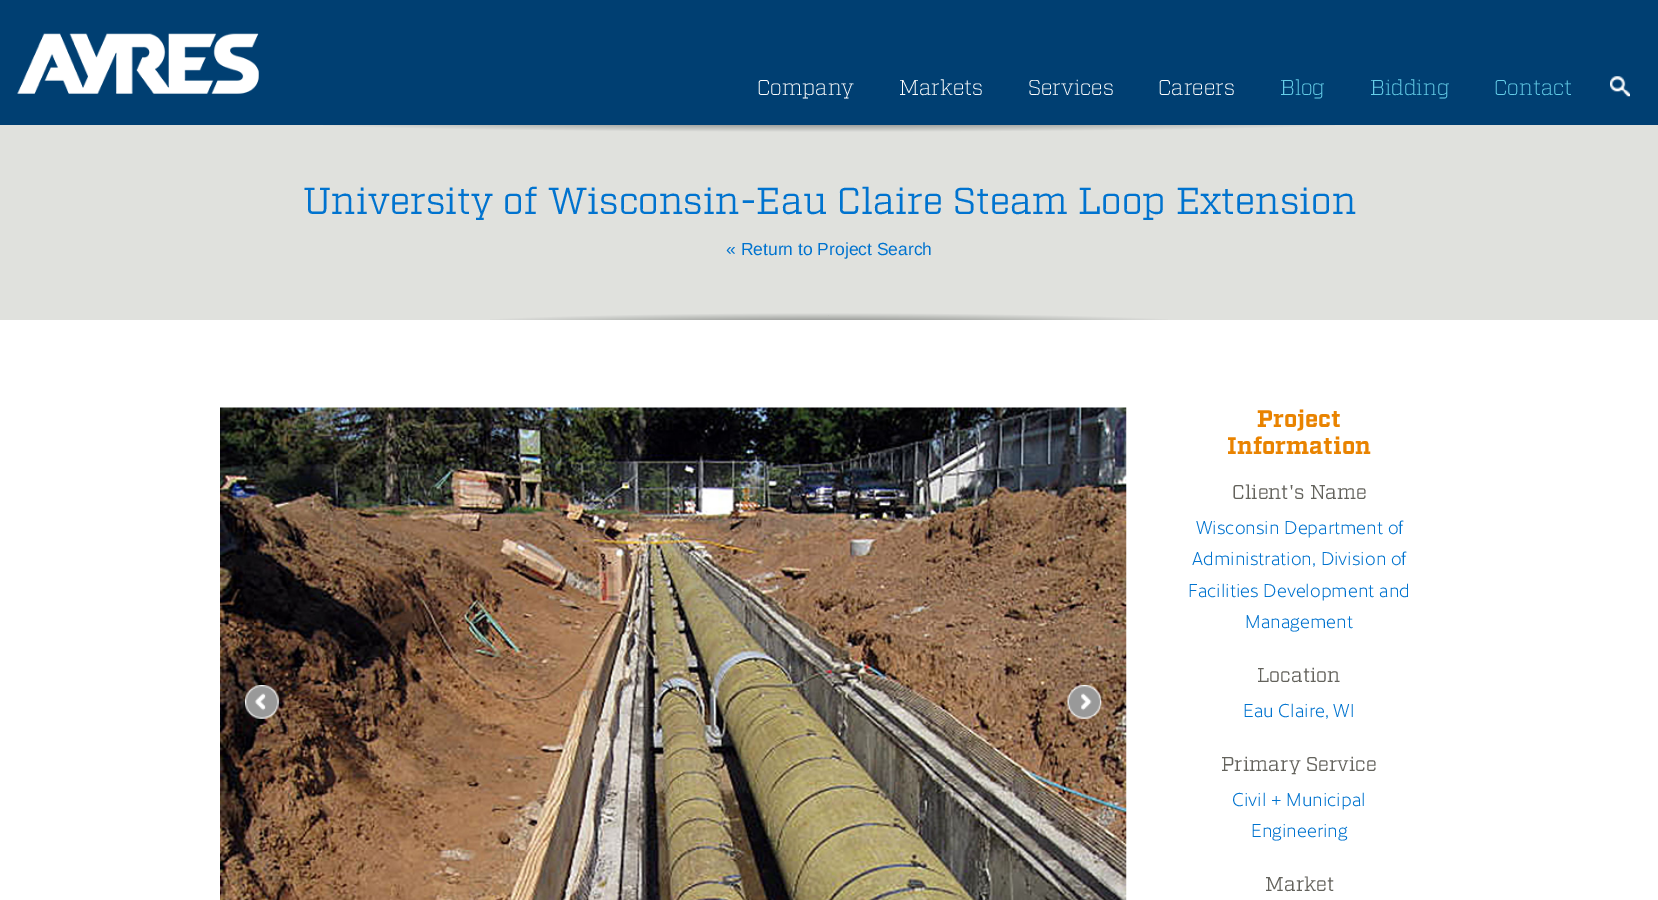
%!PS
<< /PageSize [1658 900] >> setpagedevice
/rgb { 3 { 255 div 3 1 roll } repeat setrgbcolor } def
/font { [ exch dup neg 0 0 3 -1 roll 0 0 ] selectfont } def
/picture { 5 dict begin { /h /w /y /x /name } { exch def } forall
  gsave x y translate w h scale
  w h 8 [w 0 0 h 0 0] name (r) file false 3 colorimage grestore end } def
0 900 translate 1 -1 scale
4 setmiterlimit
255 255 255 rgb
0 0 1658 900 rectfill
0 63 114 rgb
0 0 1658 125 rectfill
(img/1.rgb) 17 33 242 61 picture
(img/2.rgb) 1610 76 20 21 picture
224 225 221 rgb
0 125 1658 195 rectfill
gsave 323 125 moveto 1335 125 lineto 1335 132 lineto 323 132 lineto closepath clip newpath 829 120 translate 879 18 scale
<< /ShadingType 3 /ColorSpace /DeviceRGB /Coords [0 0 0 0 0 1] /Extend [true true] /Function << /FunctionType 3 /Domain [0 1] /Functions [<< /FunctionType 2 /Domain [0 1] /C0 [0.439 0.443 0.435] /C1 [0.878 0.882 0.867] /N 1 >> << /FunctionType 2 /Domain [0 1] /C0 [0.878 0.882 0.867] /C1 [0.878 0.882 0.867] /N 1 >>] /Bounds [0.67] /Encode [0 1 0 1] >> >> shfill grestore
gsave 490 313 moveto 1168 313 lineto 1168 320 lineto 490 320 lineto closepath clip newpath 829 325 translate 586 18 scale
<< /ShadingType 3 /ColorSpace /DeviceRGB /Coords [0 0 0 0 0 1] /Extend [true true] /Function << /FunctionType 3 /Domain [0 1] /Functions [<< /FunctionType 2 /Domain [0 1] /C0 [0.439 0.443 0.435] /C1 [0.878 0.882 0.867] /N 1 >> << /FunctionType 2 /Domain [0 1] /C0 [0.878 0.882 0.867] /C1 [0.878 0.882 0.867] /N 1 >>] /Bounds [0.67] /Encode [0 1 0 1] >> >> shfill grestore
(img/3.rgb) 220 407 907 493 picture
(img/4.rgb) 245 685 34 34 picture
(img/5.rgb) 1067 685 35 34 picture
/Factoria-Light 21.5 font
255 255 255 rgb
[
  [(Company) 757 95]
  [(Markets) 899 95]
  [(Services) 1028 95]
  [(Careers) 1158 95]
] { aload pop moveto show } forall
101 207 233 rgb
[
  [(Blog) 1280 95]
  [(Bidding) 1370 95]
  [(Contact) 1494 95]
] { aload pop moveto show } forall
/Factoria-Regular 37.5 font
0 115 207 rgb
303 214 moveto (University of Wisconsin-Eau Claire Steam Loop Extension) show
/LiberationSans-Regular 17.5 font
726 255 moveto (« Return to Project Search) show
/Factoria-Bold 24 font
233 131 0 rgb
1257 427 moveto (Project) show
1227 454 moveto (Information) show
/Factoria-Regular 20 font
99 98 92 rgb
1232 499 moveto (Client's Name) show
/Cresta-Light 18 font
0 115 207 rgb
[
  [(Wisconsin Department of) 1196 534]
  [(Administration, Division of) 1192 565]
  [(Facilities Development and) 1188 597]
  [(Management) 1245 628]
] { aload pop moveto show } forall
/Factoria-Regular 20 font
99 98 92 rgb
1257 682 moveto (Location) show
/Cresta-Light 18 font
0 115 207 rgb
1243 717 moveto (Eau Claire, WI) show
/Factoria-Regular 20 font
99 98 92 rgb
1221 771 moveto (Primary Service) show
/Cresta-Light 18 font
0 115 207 rgb
1232 806 moveto (Civil + Municipal) show
1251 837 moveto (Engineering) show
/Factoria-Regular 20 font
99 98 92 rgb
1265 891 moveto (Market) show
showpage
